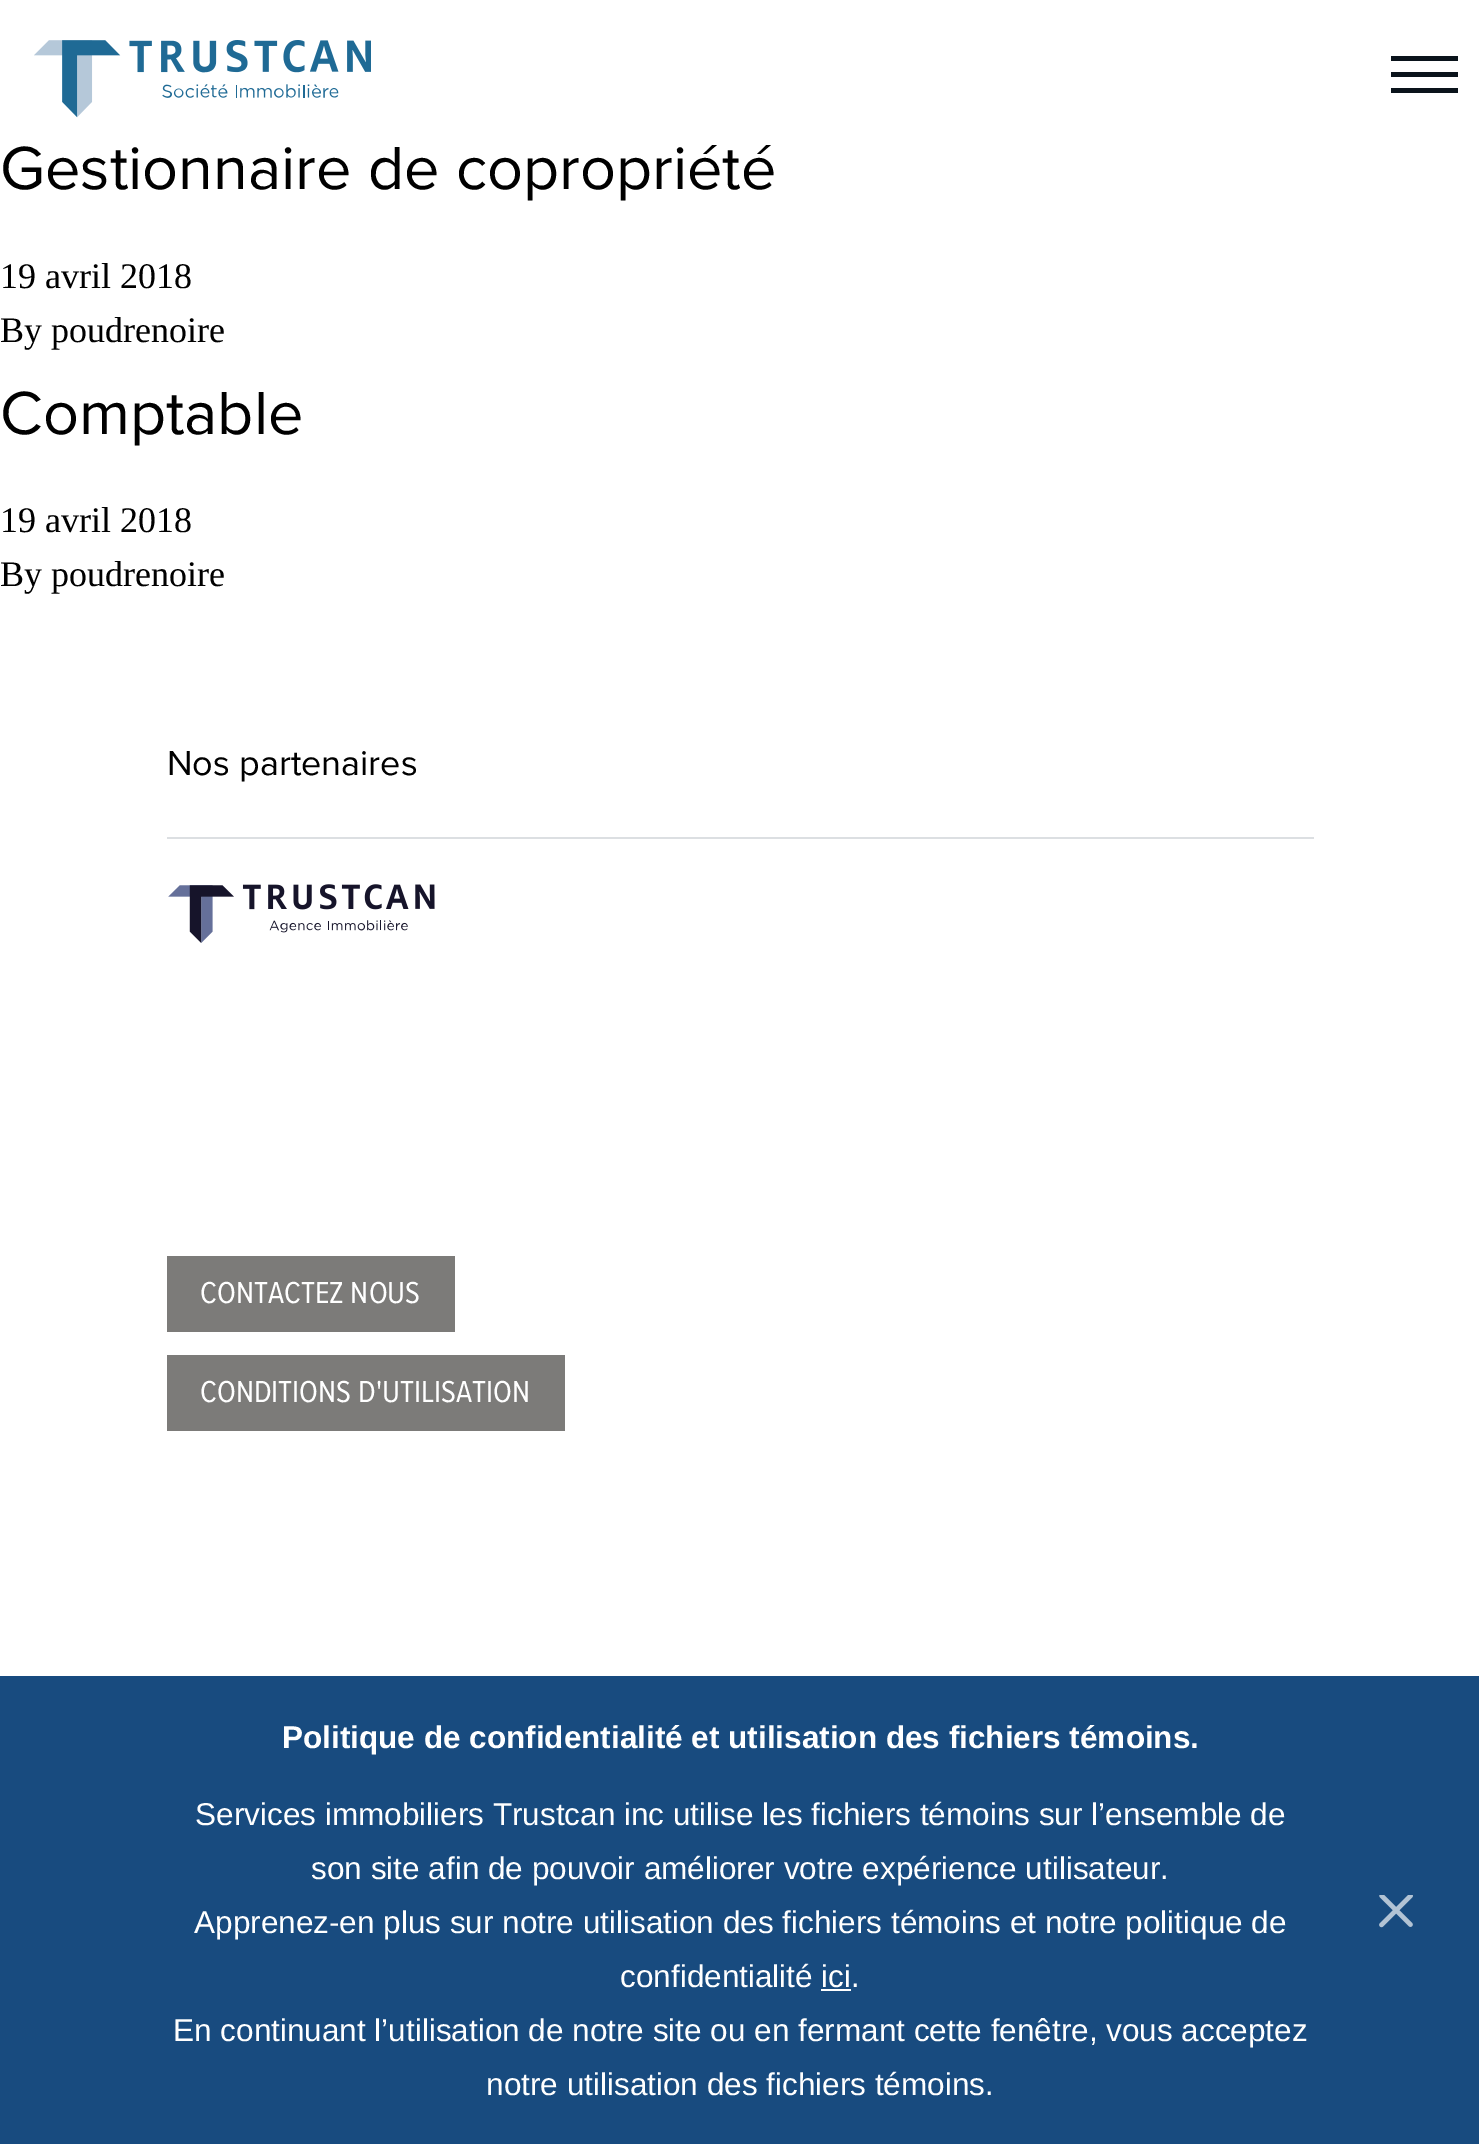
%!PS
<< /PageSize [1479 2144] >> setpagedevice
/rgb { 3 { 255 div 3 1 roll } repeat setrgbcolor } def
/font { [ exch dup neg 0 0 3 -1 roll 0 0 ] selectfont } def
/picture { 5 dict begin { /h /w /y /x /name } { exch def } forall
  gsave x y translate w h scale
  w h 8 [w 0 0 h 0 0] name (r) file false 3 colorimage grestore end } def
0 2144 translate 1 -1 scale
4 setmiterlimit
255 255 255 rgb
0 0 1479 2144 rectfill
(img/1.rgb) 34 40 337 78 picture
[
  [1391 56 67 5 10 19 27]
  [1391 72 67 5 10 19 27]
  [1391 88 67 5 10 19 27]
  [167 837 1147 2 220 223 226]
] { aload pop rgb rectfill } forall
(img/2.rgb) 168 884 267 59 picture
[
  [167 1256 288 76 124 123 121]
  [167 1355 398 76 124 123 121]
  [0 1676 1479 468 24 75 127]
  [821 1989 30 2 255 255 255]
] { aload pop rgb rectfill } forall
(img/3.rgb) 1379 1895 34 33 picture
/ProximaNova-Regular 63 font
0 0 0 rgb
0 189 moveto (Gestionnaire de copropriété) show
/LiberationSerif-Regular 36 font
0 288 moveto (19 avril 2018) show
0 342 moveto (By poudrenoire) show
/ProximaNova-Regular 63 font
0 434 moveto (Comptable) show
/LiberationSerif-Regular 36 font
0 532 moveto (19 avril 2018) show
0 586 moveto (By poudrenoire) show
/ProximaNova-Regular 36 font
167 775 moveto (Nos partenaires) show
/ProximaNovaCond-Regular 31.5 font
255 255 255 rgb
200 1303 moveto (CONTACTEZ NOUS) show
200 1402 moveto (CONDITIONS D'UTILISATION) show
/LiberationSans-Bold 31.5 font
282 1748 moveto (Politique de confidentialité et utilisation des fichiers témoins.) show
/LiberationSans-Regular 31.5 font
[
  [(Services immobiliers Trustcan inc utilise les fichiers témoins sur l’ensemble de) 195 1825]
  [(son site afin de pouvoir améliorer votre expérience utilisateur.) 311 1879]
  [(Apprenez-en plus sur notre utilisation des fichiers témoins et notre politique de) 194 1933]
  [(confidentialité ici.) 620 1987]
  [(En continuant l’utilisation de notre site ou en fermant cette fenêtre, vous acceptez) 173 2041]
  [(notre utilisation des fichiers témoins.) 486 2095]
] { aload pop moveto show } forall
showpage
